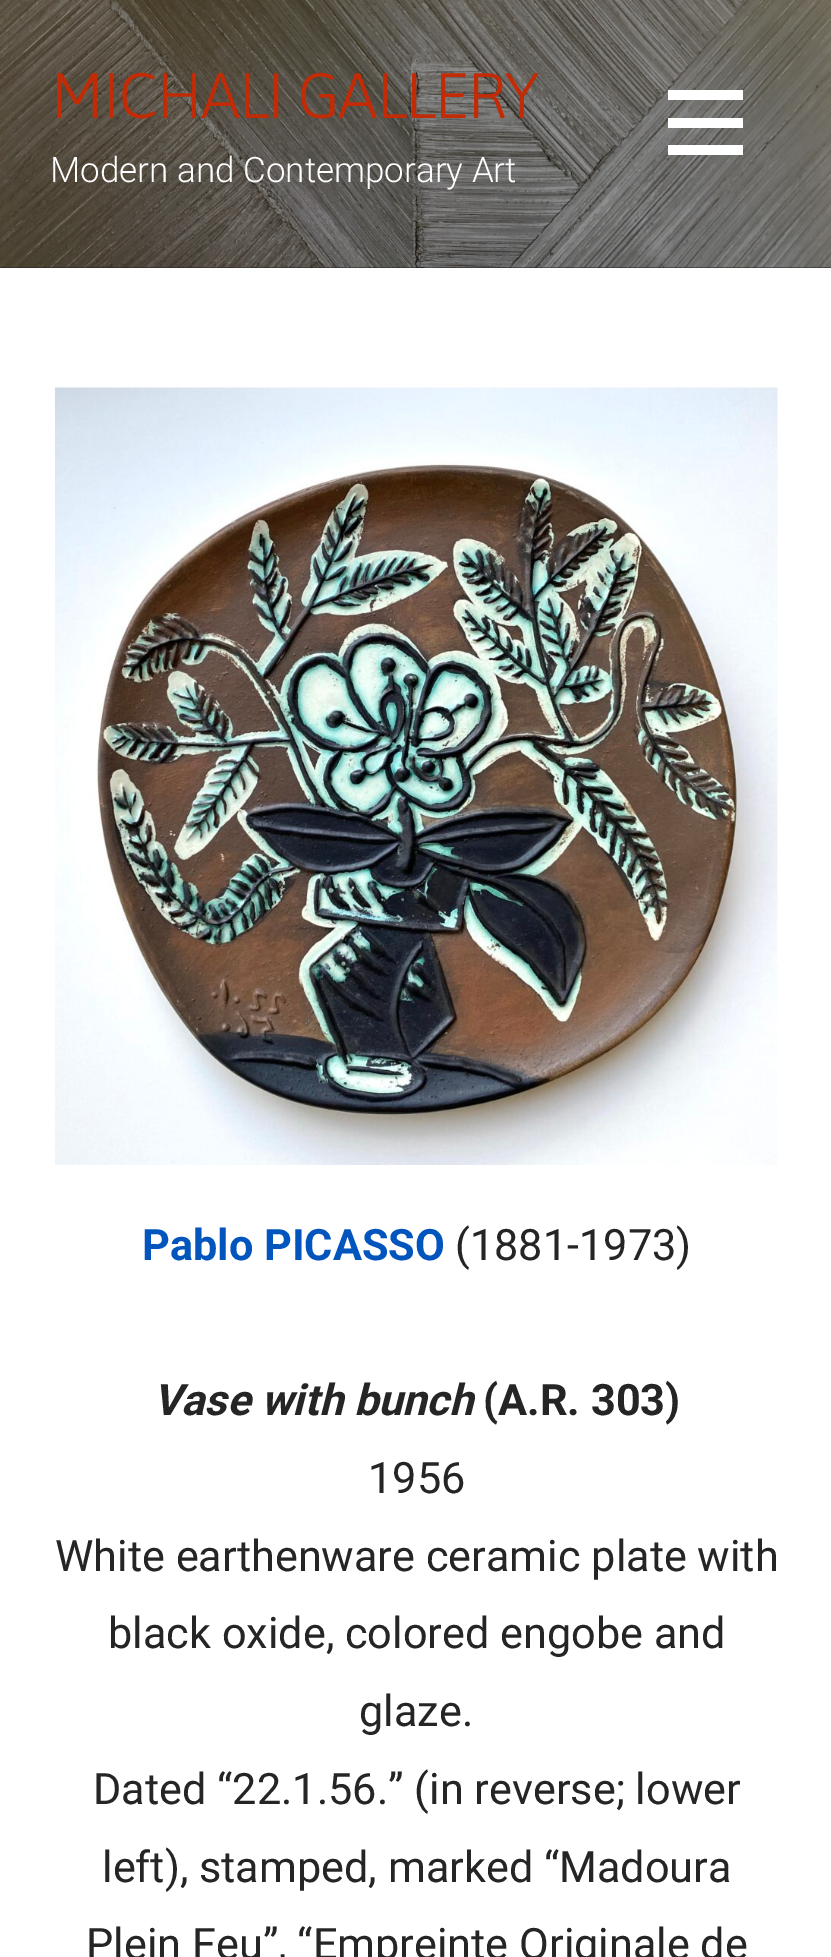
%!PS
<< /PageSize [831 1957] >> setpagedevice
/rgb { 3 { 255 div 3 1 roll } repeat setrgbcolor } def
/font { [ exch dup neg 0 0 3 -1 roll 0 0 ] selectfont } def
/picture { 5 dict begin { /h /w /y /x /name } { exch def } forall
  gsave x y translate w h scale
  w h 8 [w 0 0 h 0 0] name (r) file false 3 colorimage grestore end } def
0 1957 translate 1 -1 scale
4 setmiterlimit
255 255 255 rgb
0 0 831 1957 rectfill
33 33 33 rgb
0 267 831 1 rectfill
(img/1.rgb) 0 0 831 268 picture
[
  [668 90 75 10 255 255 255]
  [668 118 75 10 255 255 255]
  [668 145 75 10 255 255 255]
] { aload pop rgb rectfill } forall
(img/2.rgb) 55 387 723 778 picture
/Asap-Light 64 font
193 43 5 rgb
50 118 moveto -1.9 0 (MICHALI GALLERY) ashow
/Roboto-Light 35 font
255 255 255 rgb
50 182 moveto (Modern and Contemporary Art) show
/Roboto-Bold 43.25 font
1 85 188 rgb
142 1260 moveto (Pablo PICASSO) show
/Roboto-Regular 43.25 font
37 37 37 rgb
455 1260 moveto (\(1881-1973\)) show
/Roboto-BoldItalic 43.25 font
153 1415 moveto (Vase with bunch) show
/Roboto-Bold 43.25 font
483 1415 moveto (\(A.R. 303\)) show
/Roboto-Regular 43.25 font
[
  [(1956) 368 1493]
  [(White earthenware ceramic plate with) 55 1571]
  [(black oxide, colored engobe and) 108 1648]
  [(glaze.) 359 1726]
  [(Dated “22.1.56.” \(in reverse; lower) 93 1804]
  [(left\), stamped, marked “Madoura) 102 1882]
  [(Plein Feu”, “Empreinte Originale de) 86 1959]
] { aload pop moveto show } forall
showpage
